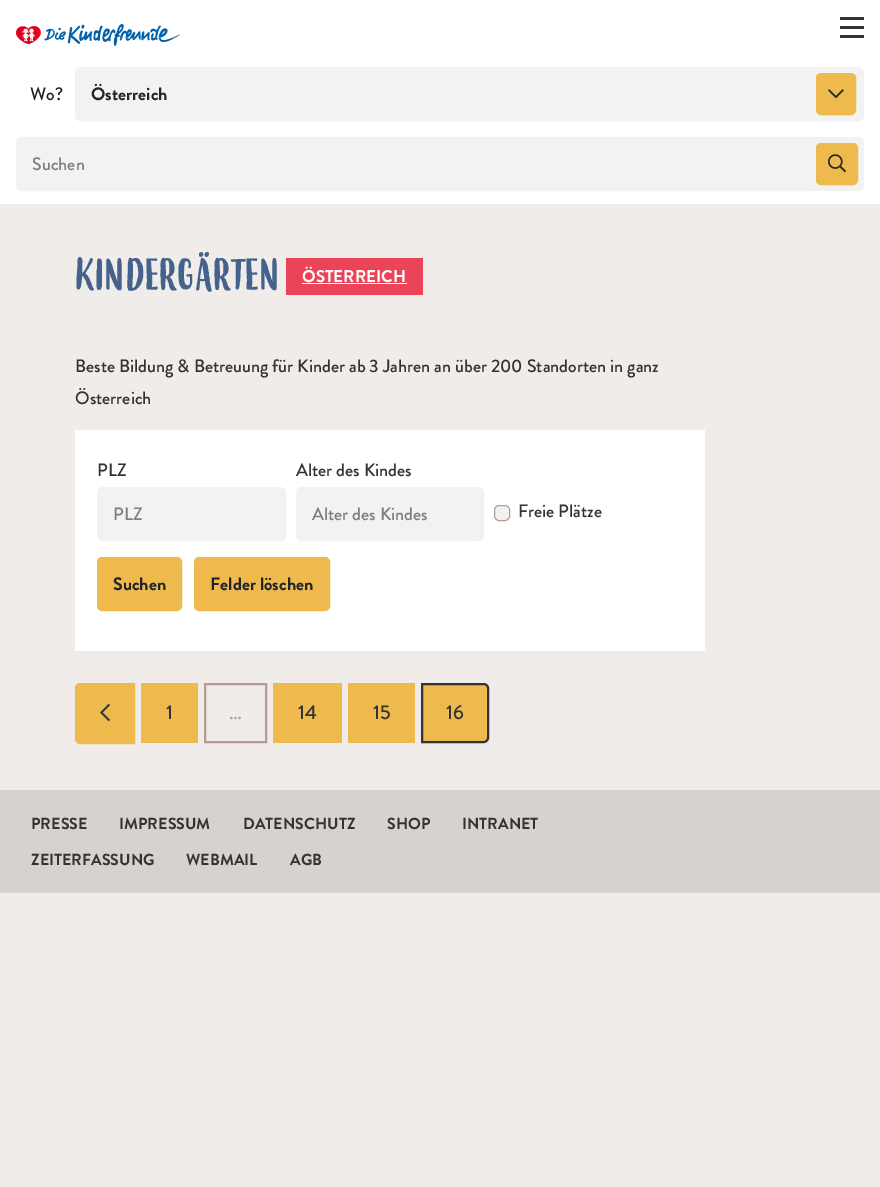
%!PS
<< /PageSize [880 1187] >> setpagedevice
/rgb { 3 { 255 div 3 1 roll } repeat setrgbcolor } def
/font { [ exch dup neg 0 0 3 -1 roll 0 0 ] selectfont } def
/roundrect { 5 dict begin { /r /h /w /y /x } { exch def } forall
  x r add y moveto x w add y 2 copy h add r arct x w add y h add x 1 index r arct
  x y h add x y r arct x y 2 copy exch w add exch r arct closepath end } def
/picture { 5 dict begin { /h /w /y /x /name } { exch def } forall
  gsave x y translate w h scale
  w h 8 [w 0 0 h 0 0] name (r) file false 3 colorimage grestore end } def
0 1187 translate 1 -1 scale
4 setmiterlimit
240 236 234 rgb
0 0 880 1187 rectfill
255 255 255 rgb
0 0 880 204 rectfill
(img/1.rgb) 16 24 164 22 picture
[
  [840 17 24 3 51 51 51]
  [840 26 24 3 51 51 51]
  [840 35 24 3 51 51 51]
] { aload pop rgb rectfill } forall
242 242 242 rgb
80 68 moveto 858 68 lineto 861 68 863 70 863 73 curveto 863 115 lineto 863 118 861 120 858 120 curveto 80 120 lineto 78 120 76 118 76 116 curveto 76 72 lineto 76 70 78 68 80 68 curveto closepath gsave fill grestore
2 setlinewidth
stroke
238 185 77 rgb
817 74 38 40 4 roundrect gsave fill grestore
stroke
(img/2.rgb) 828 89 16 10 picture
242 242 242 rgb
810 137 moveto 858 137 lineto 861.5 137 864 139.5 864 143 curveto 864 185 lineto 864 188.5 861.5 191 858 191 curveto 810 191 lineto closepath fill
22 138 moveto 811 138 lineto 811 190 lineto 22 190 lineto 19 190 17 188 17 185 curveto 17 143 lineto 17 140 19 138 22 138 curveto closepath gsave fill grestore
stroke
238 185 77 rgb
817 144 40 40 4 roundrect gsave fill grestore
stroke
(img/3.rgb) 828 154 18 19 picture
[
  [286 258 137 37 235 67 88]
  [302 283 105 1 255 255 255]
  [75 430 630 221 255 255 255]
] { aload pop rgb rectfill } forall
242 242 242 rgb
98 488 187 52 5 roundrect gsave fill grestore
stroke
297 488 186 52 5 roundrect gsave fill grestore
stroke
494.5 505.5 15 15 4.5 roundrect gsave fill grestore
183 156 145 rgb
1 setlinewidth
stroke
238 185 77 rgb
98 558 83 52 4 roundrect gsave fill grestore
2 setlinewidth
stroke
195 558 134 52 4 roundrect gsave fill grestore
stroke
80 684 moveto 134 684 lineto 134 743 lineto 80 743 lineto 78 743 76 741 76 739 curveto 76 688 lineto 76 686 78 684 80 684 curveto closepath gsave fill grestore
stroke
(img/4.rgb) 100 703 10 19 picture
141 683 57 60 rectfill
183 156 145 rgb
205 684 61 58 rectstroke
238 185 77 rgb
273 683 69 60 rectfill
348 683 67 60 rectfill
422 684 moveto 484 684 lineto 486 684 488 686 488 688 curveto 488 738 lineto 488 740 486 742 484 742 curveto 422 742 lineto closepath gsave fill grestore
51 51 51 rgb
stroke
216 210 207 rgb
0 790 880 103 rectfill
/BrandonGrotesque-Medium 18 font
33 37 41 rgb
30 100 moveto (Wo?) show
/BrandonGrotesque-Bold 18 font
91 100 moveto (Österreich) show
/BrandonGrotesque-Medium 18 font
126 126 126 rgb
32 170 moveto (Suchen) show
/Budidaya-Regular 43 font
69 98 141 rgb
75 289 moveto (KINDERGÄRTEN) show
/BrandonGrotesque-Bold 17 font
255 255 255 rgb
302 282 moveto (ÖSTERREICH) show
/BrandonGrotesque-Medium 18 font
51 51 51 rgb
[
  [(Beste Bildung & Betreuung für Kinder ab 3 Jahren an über 200 Standorten in ganz) 75 372]
  [(Österreich) 75 404]
  [(PLZ) 97 476]
] { aload pop moveto show } forall
126 126 126 rgb
113 520 moveto (PLZ) show
51 51 51 rgb
296 476 moveto (Alter des Kindes) show
126 126 126 rgb
312 520 moveto (Alter des Kindes) show
51 51 51 rgb
518 517 moveto (Freie Plätze) show
/BrandonGrotesque-Bold 18 font
33 37 41 rgb
113 590 moveto (Suchen) show
210 590 moveto (Felder löschen) show
/BrandonGrotesque-Medium 20 font
51 51 51 rgb
166 719 moveto (1) show
183 156 145 rgb
229 719 moveto (…) show
51 51 51 rgb
[
  [(14) 298 719]
  [(15) 373 719]
  [(16) 446 719]
] { aload pop moveto show } forall
/BrandonGrotesque-Bold 16 font
[
  [(PRESSE) 31 829]
  [(IMPRESSUM) 119 829]
  [(DATENSCHUTZ) 243 829]
  [(SHOP) 387 829]
  [(INTRANET) 462 829]
  [(ZEITERFASSUNG) 31 865]
  [(WEBMAIL) 186 865]
  [(AGB) 290 865]
] { aload pop moveto show } forall
showpage
